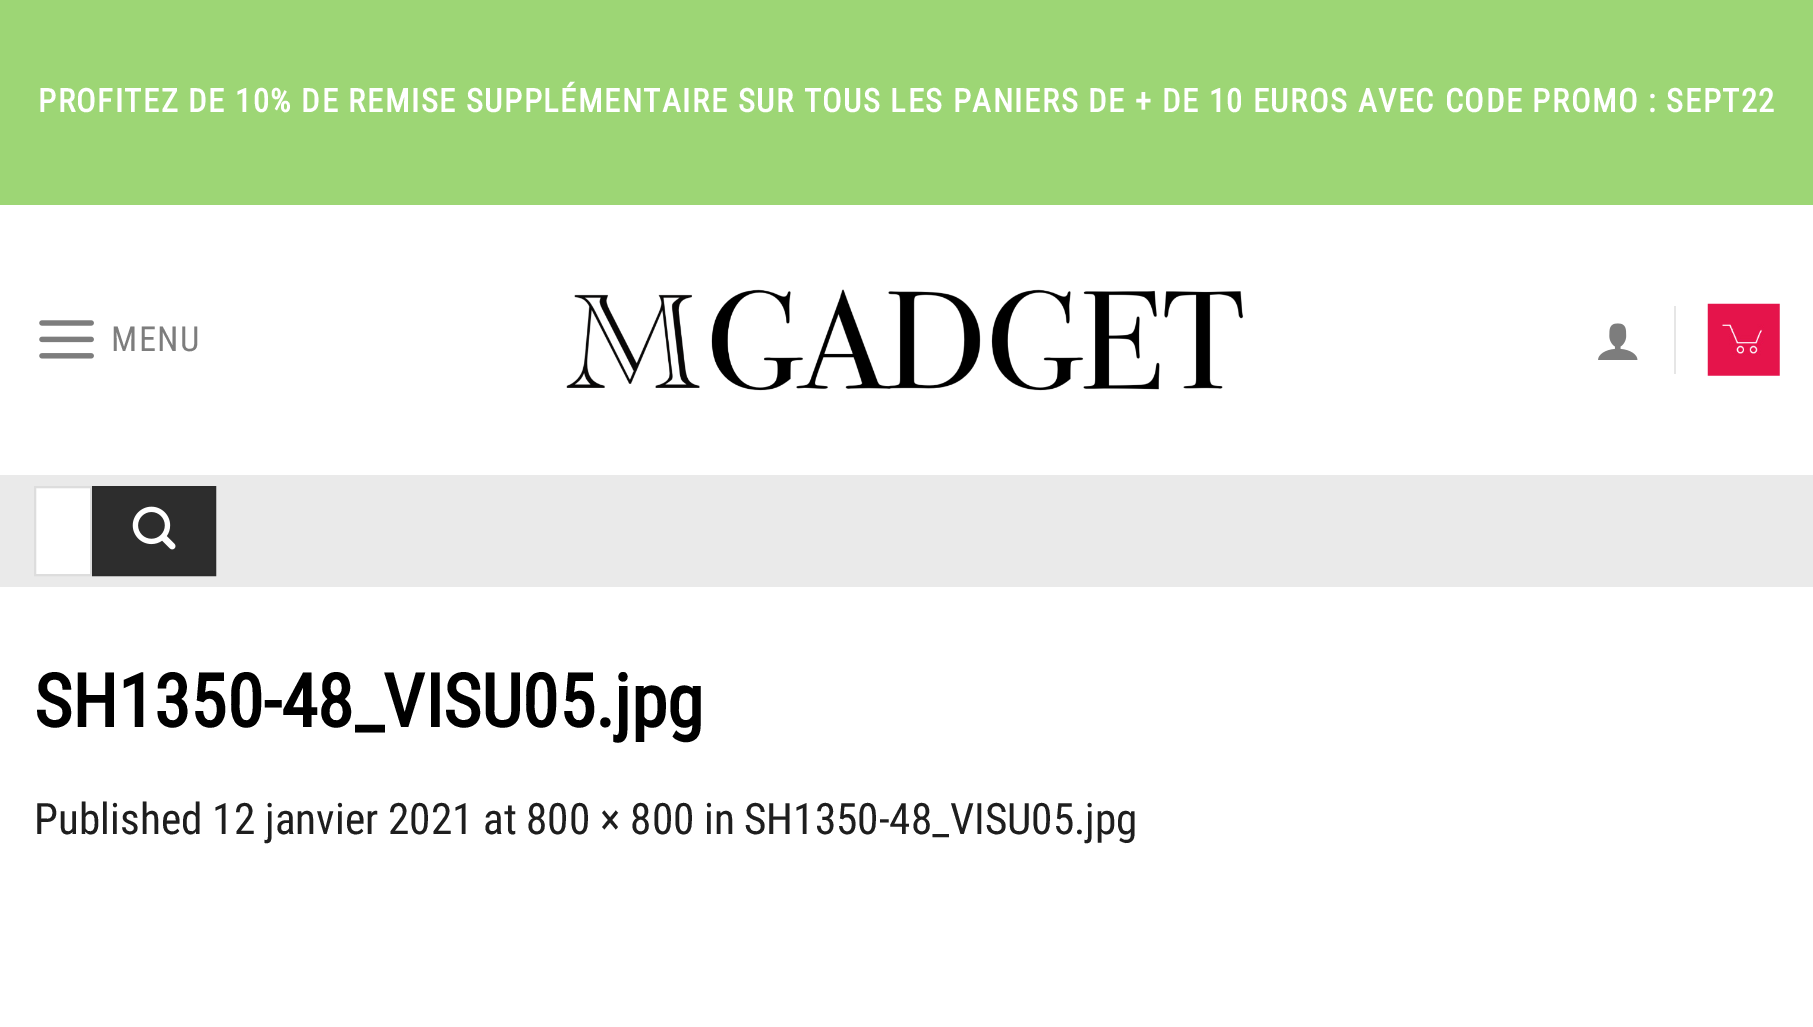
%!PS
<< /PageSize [1813 1027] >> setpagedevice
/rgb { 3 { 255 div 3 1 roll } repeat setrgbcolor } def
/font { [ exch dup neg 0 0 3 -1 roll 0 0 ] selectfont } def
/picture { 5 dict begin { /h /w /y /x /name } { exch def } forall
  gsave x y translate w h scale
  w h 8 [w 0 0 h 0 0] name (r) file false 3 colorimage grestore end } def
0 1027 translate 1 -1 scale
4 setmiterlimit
255 255 255 rgb
0 0 1813 1027 rectfill
157 214 117 rgb
0 0 1813 205 rectfill
(img/1.rgb) 39 320 55 39 picture
(img/2.rgb) 566 289 678 102 picture
(img/3.rgb) 1598 323 40 37 picture
230 230 230 rgb
1674 306 2 68 rectfill
(img/4.rgb) 1707 303 73 73 picture
234 234 234 rgb
0 475 1813 112 rectfill
255 255 255 rgb
35 487 moveto 91 487 lineto 91 575 lineto 35 575 lineto closepath gsave fill grestore
221 221 221 rgb
2 setlinewidth
stroke
45 45 45 rgb
93 487 moveto 215 487 lineto 215 575 lineto 93 575 lineto closepath gsave fill grestore
43 43 43 rgb
stroke
(img/5.rgb) 132 506 44 44 picture
/RobotoCondensed-Bold 32.4 font
255 255 255 rgb
38 112 moveto 1.62 0 (PROFITEZ DE 10% DE REMISE SUPPLÉMENTAIRE SUR TOUS LES PANIERS DE + DE 10 EUROS AVEC CODE PROMO : SEPT22) ashow
/RobotoCondensed-Regular 34.5 font
125 125 125 rgb
111 351 moveto 1.5 0 (MENU) ashow
/RobotoCondensed-Bold 73.5 font
0 0 0 rgb
34 727 moveto (SH1350-48_VISU05.jpg) show
/RobotoCondensed-Regular 43.25 font
30 30 30 rgb
[
  [(Published 12 janvier 2021 at) 34 834]
  [(800 × 800) 526 834]
  [(in) 704 834]
  [(SH1350-48_VISU05.jpg) 744 834]
] { aload pop moveto show } forall
showpage
